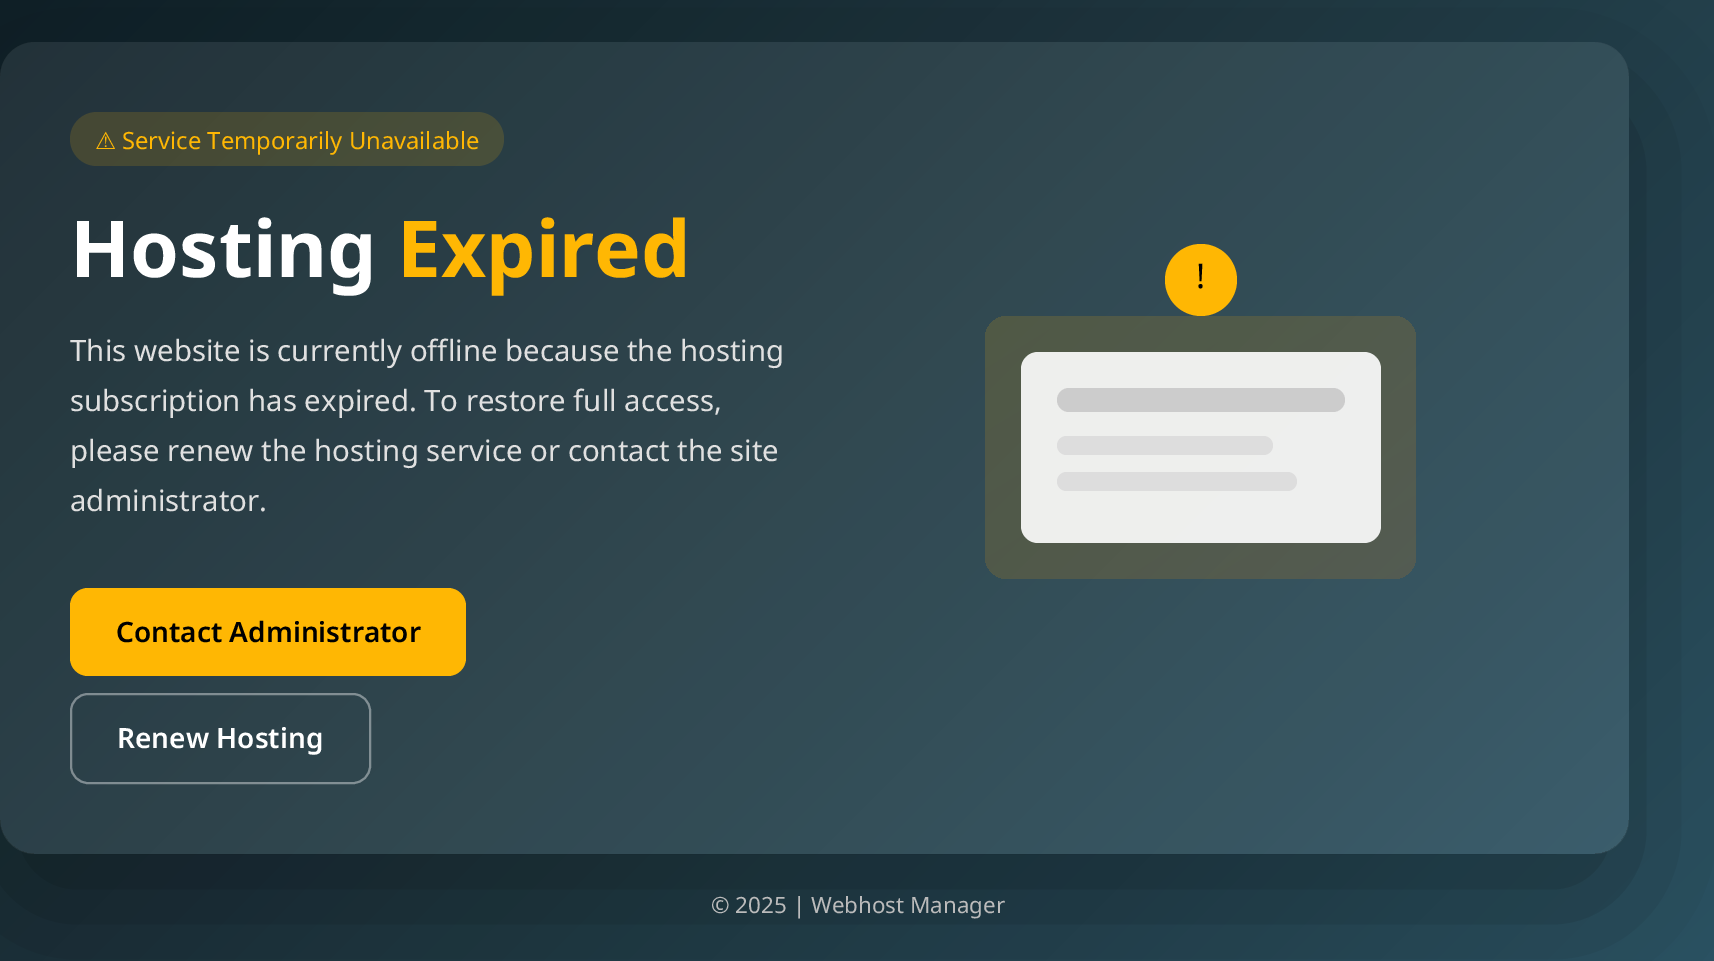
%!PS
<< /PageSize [1714 961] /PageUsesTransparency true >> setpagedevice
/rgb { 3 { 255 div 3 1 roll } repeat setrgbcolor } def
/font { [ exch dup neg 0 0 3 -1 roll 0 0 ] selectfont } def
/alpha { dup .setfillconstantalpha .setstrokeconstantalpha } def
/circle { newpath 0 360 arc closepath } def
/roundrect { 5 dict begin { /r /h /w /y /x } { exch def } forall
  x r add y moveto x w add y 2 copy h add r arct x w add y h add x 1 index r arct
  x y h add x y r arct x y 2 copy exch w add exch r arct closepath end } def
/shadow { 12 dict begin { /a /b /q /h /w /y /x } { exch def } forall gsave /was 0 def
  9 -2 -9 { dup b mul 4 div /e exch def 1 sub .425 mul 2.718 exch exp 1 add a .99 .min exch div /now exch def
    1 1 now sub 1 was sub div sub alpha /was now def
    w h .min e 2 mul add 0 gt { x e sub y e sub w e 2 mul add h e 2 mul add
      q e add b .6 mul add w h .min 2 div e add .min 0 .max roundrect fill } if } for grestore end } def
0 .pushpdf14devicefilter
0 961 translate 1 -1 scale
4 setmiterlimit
255 255 255 rgb
0 0 1714 961 rectfill
gsave 0 0 moveto 1714 0 lineto 1714 961 lineto 0 961 lineto closepath clip newpath
<< /ShadingType 2 /ColorSpace /DeviceRGB /Coords [188 -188 1527 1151] /Extend [true true] /Function << /FunctionType 3 /Domain [0 1] /Functions [<< /FunctionType 2 /Domain [0 1] /C0 [0.059 0.125 0.153] /C1 [0.125 0.227 0.263] /N 1 >> << /FunctionType 2 /Domain [0 1] /C0 [0.125 0.227 0.263] /C1 [0.173 0.325 0.392] /N 1 >>] /Bounds [0.5] /Encode [0 1 0 1] >> >> shfill grestore
gsave
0 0 moveto 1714 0 lineto 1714 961 lineto 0 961 lineto closepath 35 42 moveto 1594 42 lineto 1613.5 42 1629 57.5 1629 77 curveto 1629 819 lineto 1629 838.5 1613.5 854 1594 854 curveto 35 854 lineto 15.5 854 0 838.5 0 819 curveto 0 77 lineto 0 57.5 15.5 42 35 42 curveto closepath eoclip newpath
0 0 0 rgb
0 95 1629 812 35 70 0.35 shadow
grestore
0.08 alpha
0 42 1629 812 35 roundrect fill
0.15 alpha
255 183 3 rgb
70 112 434 54 27 roundrect fill
1 alpha
70 588 396 88 18 roundrect fill
0.4 alpha
255 255 255 rgb
2 setlinewidth
71 694 299 89 17 roundrect stroke
0.15 alpha
gsave 985 316 431 263 22 roundrect clip newpath
<< /ShadingType 2 /ColorSpace /DeviceRGB /Coords [985 316 1220 700] /Extend [true true] /Function << /FunctionType 2 /Domain [0 1] /C0 [1 0.718 0.012] /C1 [0.984 0.522 0] /N 1 >> >> shfill grestore
0.9 alpha
1021 352 360 191 17 roundrect fill
1 alpha
204 204 204 rgb
1057 388 288 24 12 roundrect fill
221 221 221 rgb
1057 436 216 19 9.5 roundrect fill
1057 472 240 19 9.5 roundrect fill
255 183 3 rgb
1201 280 36 circle fill
/DejaVuSans-Regular 23.75 font
95 149 moveto (⚠) show
/NotoSans-Regular 23.75 font
122 149 moveto (Service Temporarily Unavailable) show
/NotoSans-Bold 78.5 font
255 255 255 rgb
70 277 moveto (Hosting) show
255 183 3 rgb
397 277 moveto (Expired) show
/NotoSans-Regular 29.4 font
224 224 224 rgb
[
  [(This website is currently offline because the hosting) 70 361]
  [(subscription has expired.) 70 411]
  [(To restore full access,) 424 411]
  [(please renew the hosting service or contact the site) 70 461]
  [(administrator.) 70 511]
] { aload pop moveto show } forall
/NotoSans-SemiBold 28 font
0 0 0 rgb
116 642 moveto (Contact Administrator) show
255 255 255 rgb
117 748 moveto (Renew Hosting) show
/NotoSans-Regular 34 font
0 0 0 rgb
1196 288 moveto (!) show
/NotoSans-Regular 22.4 font
187 187 187 rgb
711 913 moveto (© 2025 | Webhost Manager) show
.poppdf14devicefilter showpage
